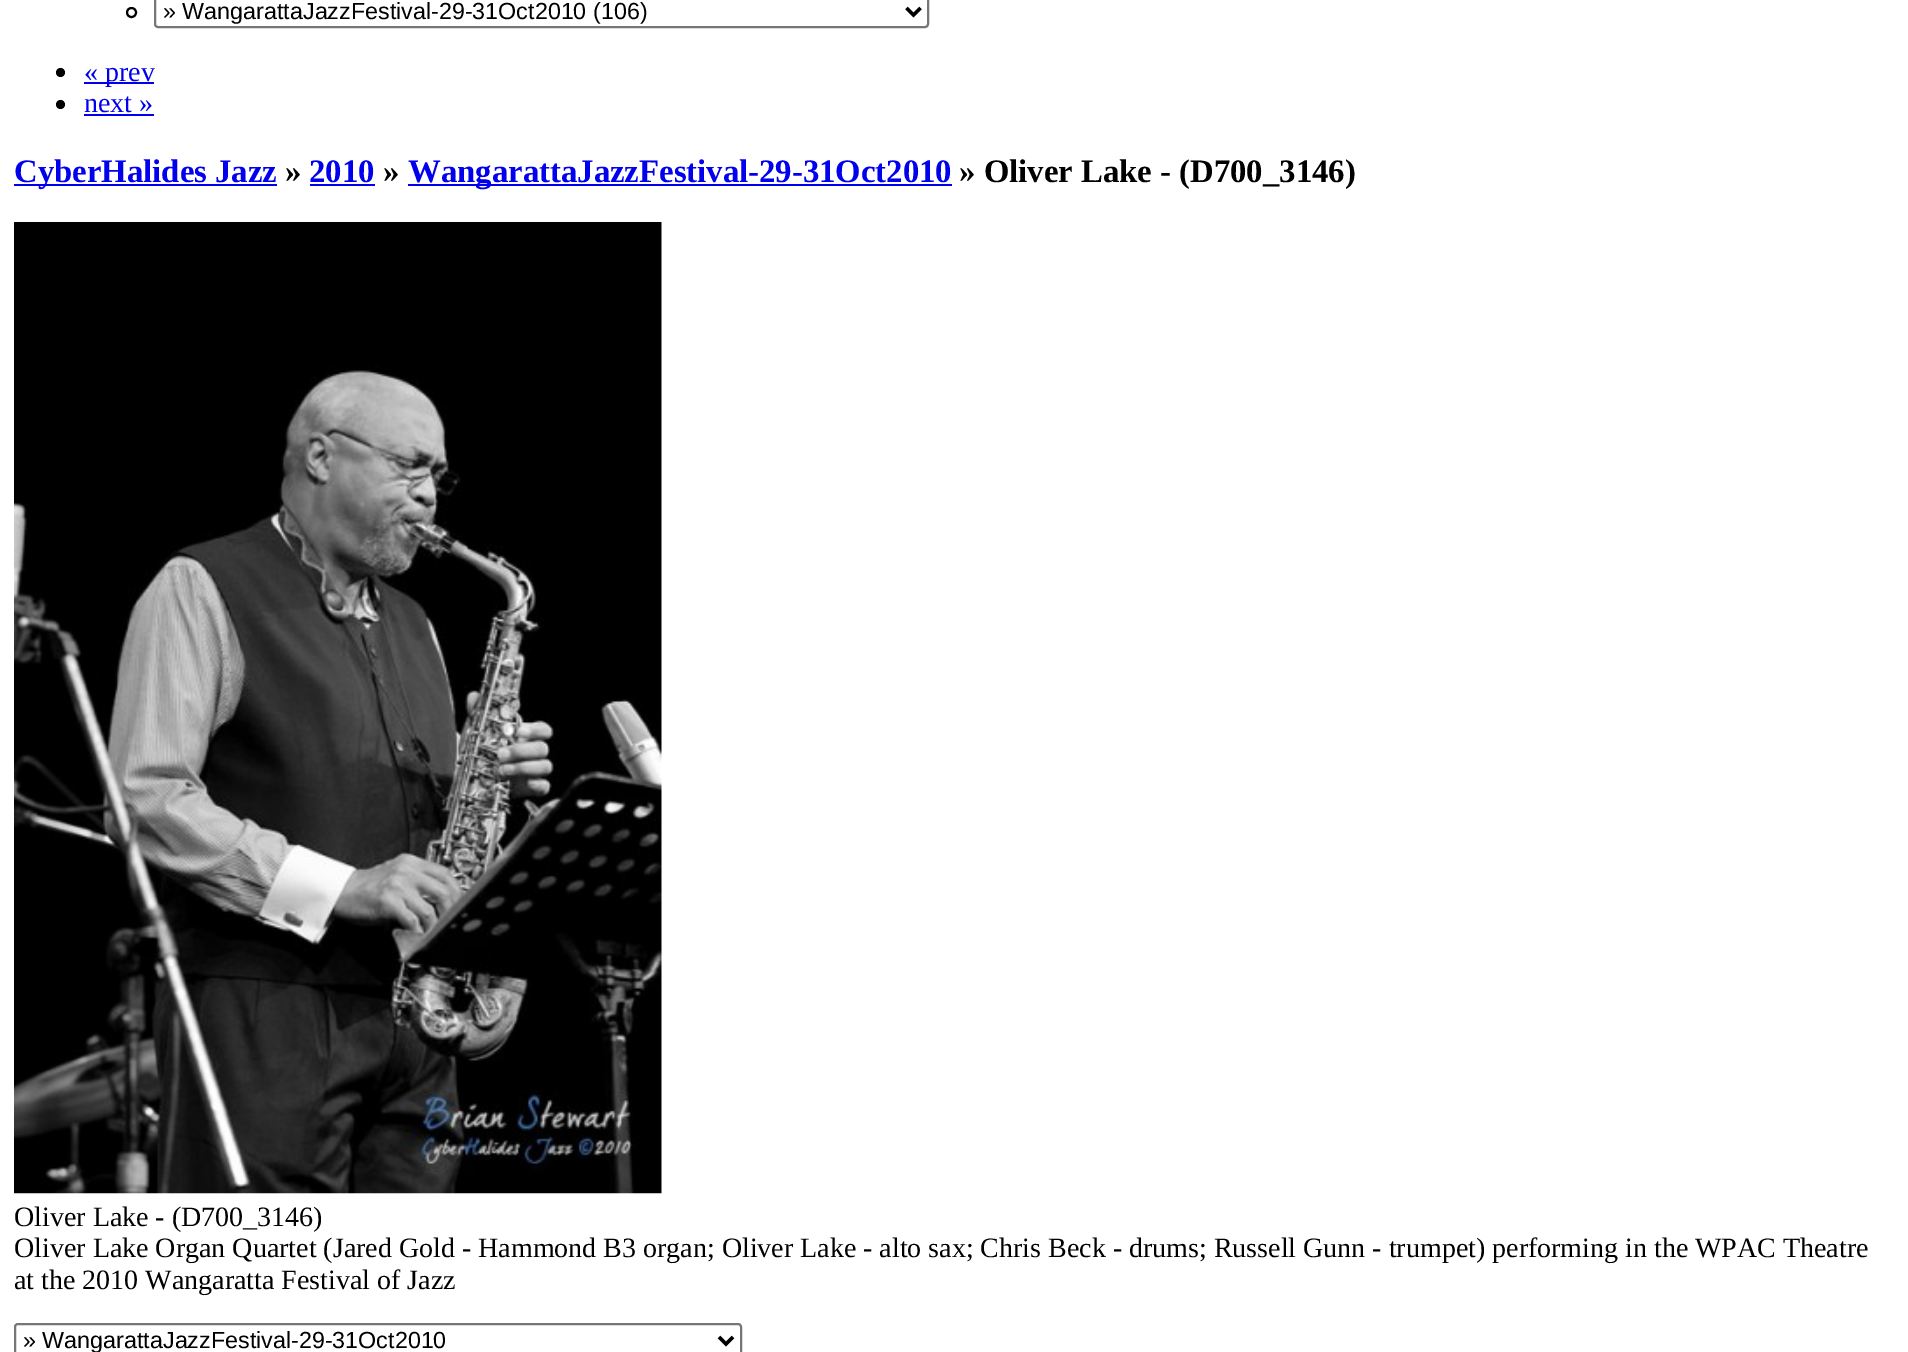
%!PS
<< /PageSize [1908 1352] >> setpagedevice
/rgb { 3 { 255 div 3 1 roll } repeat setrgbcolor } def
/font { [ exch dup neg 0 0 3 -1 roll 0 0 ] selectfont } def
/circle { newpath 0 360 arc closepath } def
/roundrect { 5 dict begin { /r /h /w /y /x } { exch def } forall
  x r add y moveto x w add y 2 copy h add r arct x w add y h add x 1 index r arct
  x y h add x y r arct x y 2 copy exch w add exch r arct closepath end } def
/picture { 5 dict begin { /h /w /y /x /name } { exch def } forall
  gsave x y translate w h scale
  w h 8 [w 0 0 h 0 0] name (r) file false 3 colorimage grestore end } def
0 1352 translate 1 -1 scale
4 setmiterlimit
255 255 255 rgb
0 0 1908 1352 rectfill
0 0 0 rgb
2 setlinewidth
131.5 12.5 4.5 circle stroke
118 118 118 rgb
155 -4 773 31 3 roundrect stroke
0 0 0 rgb
3.5 setlinewidth
906.5 8 moveto 913.5 15 lineto 920.5 8 lineto stroke
60.5 72.5 4.5 circle fill
0 0 238 rgb
84 82 70 2 rectfill
0 0 0 rgb
60.5 104.5 4.5 circle fill
[
  [84 114 70 2 0 0 238]
  [14 184 263 2 0 0 238]
  [310 184 65 2 0 0 238]
  [408 184 544 2 0 0 238]
] { aload pop rgb rectfill } forall
(img/1.rgb) 14 222 648 972 picture
118 118 118 rgb
2 setlinewidth
15 1324 726 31 3 roundrect stroke
0 0 0 rgb
3.5 setlinewidth
719 1337 moveto 726 1344 lineto 733 1337 lineto stroke
/LiberationSans-Regular 23.3 font
163 19 moveto (» WangarattaJazzFestival-29-31Oct2010 \(106\)) show
/LiberationSerif-Regular 28 font
0 0 238 rgb
84 81 moveto (« prev) show
84 112 moveto (next ») show
/LiberationSerif-Bold 32.75 font
14 182 moveto (CyberHalides Jazz) show
0 0 0 rgb
285 182 moveto (») show
0 0 238 rgb
309 182 moveto (2010) show
0 0 0 rgb
383 182 moveto (») show
0 0 238 rgb
408 182 moveto (WangarattaJazzFestival-29-31Oct2010) show
0 0 0 rgb
959 182 moveto (» Oliver Lake - \(D700_3146\)) show
/LiberationSerif-Regular 28 font
[
  [(Oliver Lake - \(D700_3146\)) 14 1226]
  [(Oliver Lake Organ Quartet \(Jared Gold - Hammond B3 organ; Oliver Lake - alto sax; Chris Beck - drums; Russell Gunn - trumpet\) performing in the WPAC Theatre) 14 1257]
  [(at the 2010 Wangaratta Festival of Jazz) 14 1289]
] { aload pop moveto show } forall
/LiberationSans-Regular 23.3 font
23 1348 moveto (» WangarattaJazzFestival-29-31Oct2010) show
showpage
